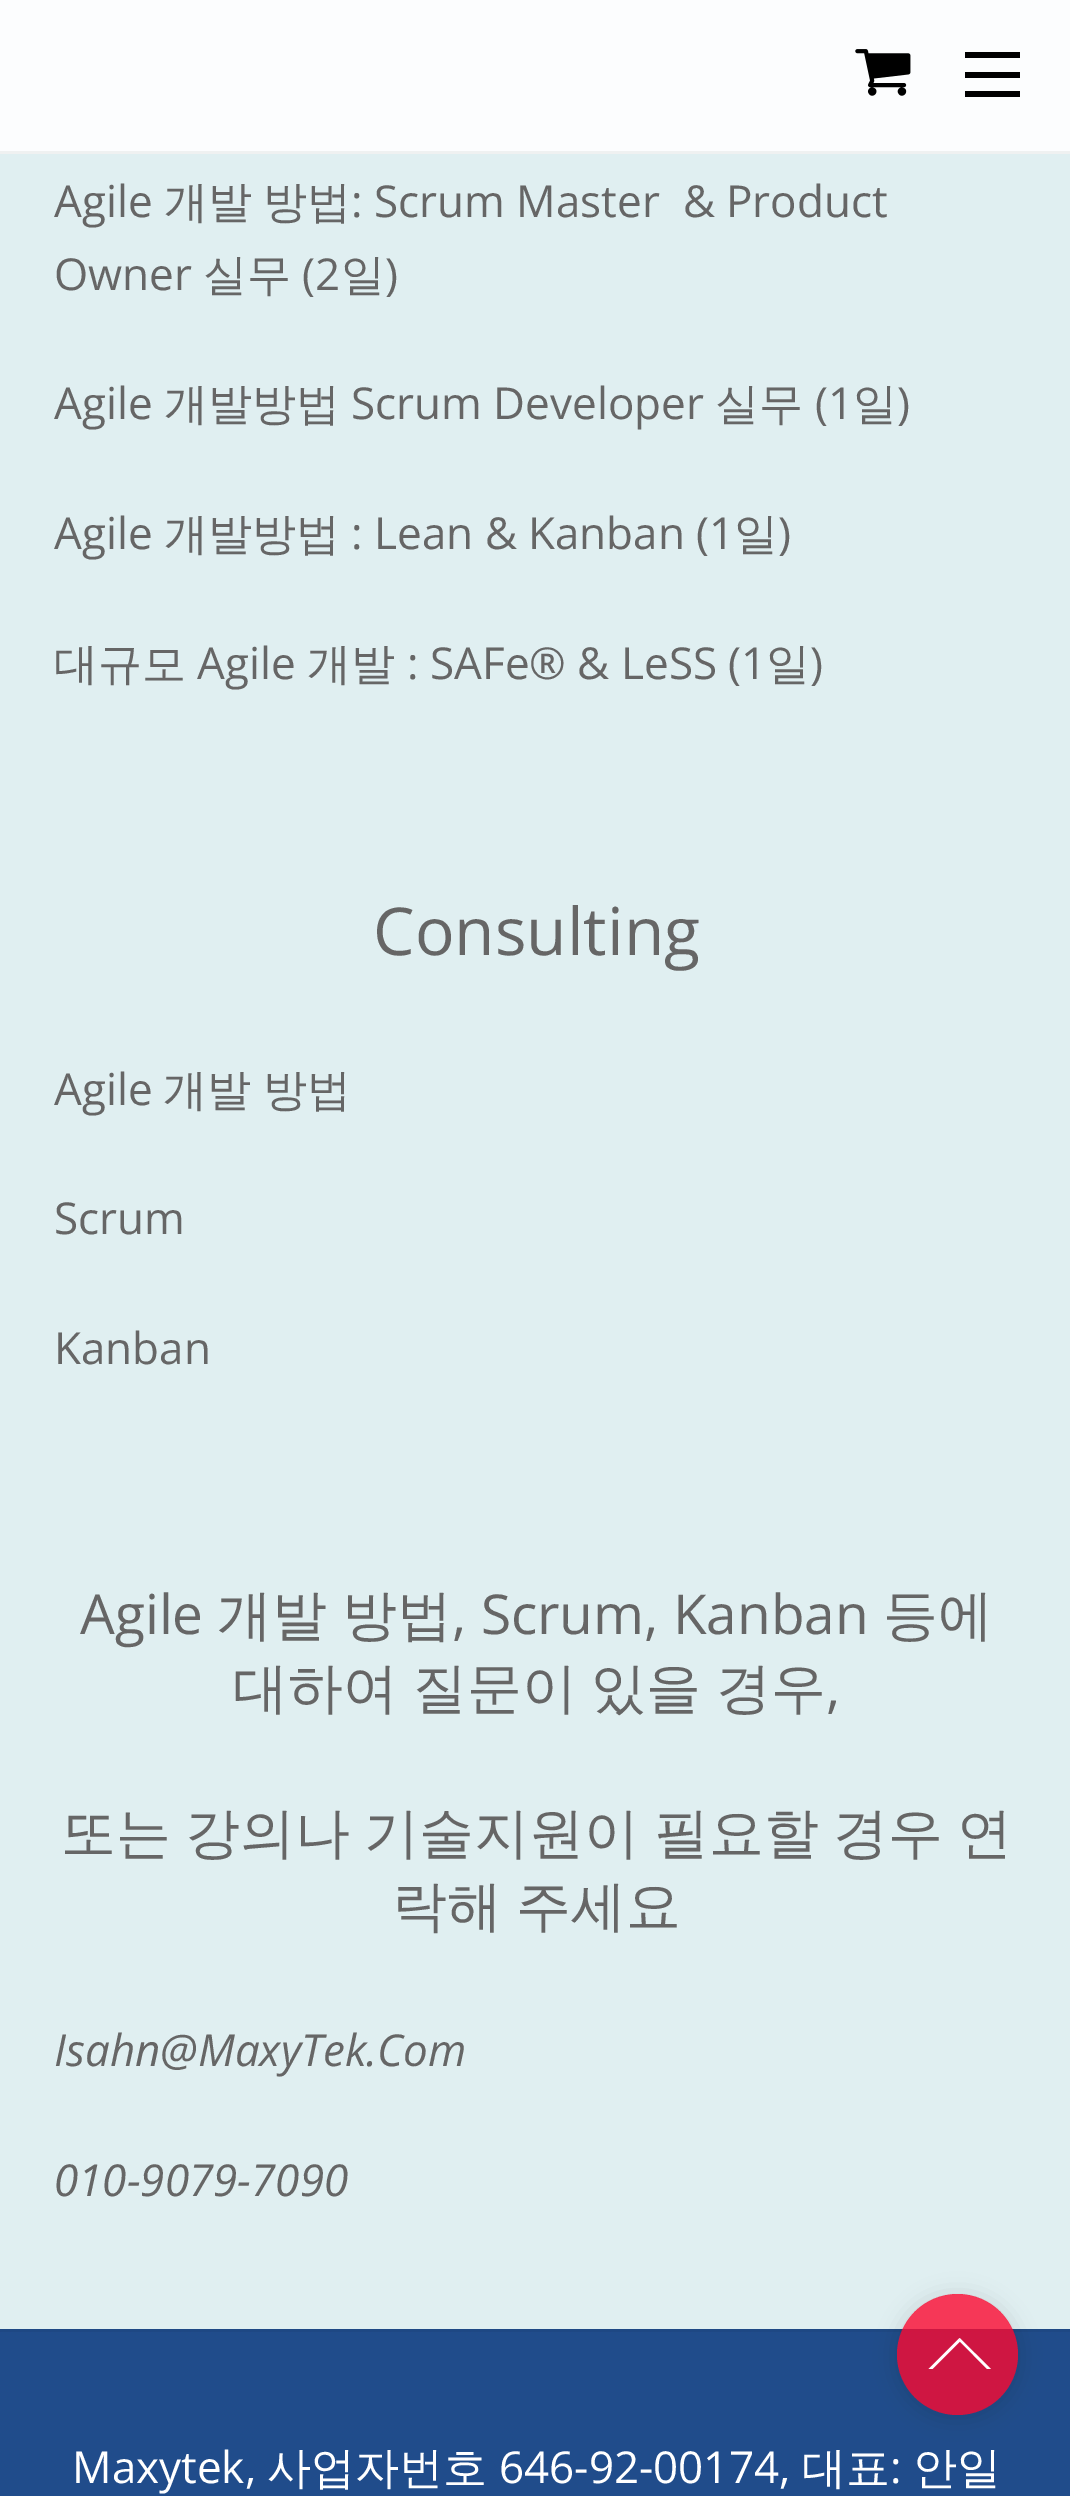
%!PS
<< /PageSize [1070 2496] /PageUsesTransparency true >> setpagedevice
/rgb { 3 { 255 div 3 1 roll } repeat setrgbcolor } def
/font { [ exch dup neg 0 0 3 -1 roll 0 0 ] selectfont } def
/alpha { dup .setfillconstantalpha .setstrokeconstantalpha } def
/circle { newpath 0 360 arc closepath } def
/roundrect { 5 dict begin { /r /h /w /y /x } { exch def } forall
  x r add y moveto x w add y 2 copy h add r arct x w add y h add x 1 index r arct
  x y h add x y r arct x y 2 copy exch w add exch r arct closepath end } def
/shadow { 12 dict begin { /a /b /q /h /w /y /x } { exch def } forall gsave /was 0 def
  9 -2 -9 { dup b mul 4 div /e exch def 1 sub .425 mul 2.718 exch exp 1 add a .99 .min exch div /now exch def
    1 1 now sub 1 was sub div sub alpha /was now def
    w h .min e 2 mul add 0 gt { x e sub y e sub w e 2 mul add h e 2 mul add
      q e add b .6 mul add w h .min 2 div e add .min 0 .max roundrect fill } if } for grestore end } def
/picture { 5 dict begin { /h /w /y /x /name } { exch def } forall
  gsave x y translate w h scale
  w h 8 [w 0 0 h 0 0] name (r) file false 3 colorimage grestore end } def
0 .pushpdf14devicefilter
0 2496 translate 1 -1 scale
4 setmiterlimit
224 239 241 rgb
0 0 1070 2496 rectfill
252 253 254 rgb
0 0 1070 151 rectfill
239 241 241 rgb
0 151 1070 3 rectfill
(img/1.rgb) 855 49 56 47 picture
[
  [965 91 55 6 0 0 0]
  [965 52 55 6 0 0 0]
  [965 72 55 6 0 0 0]
  [0 2332 1070 164 32 76 139]
  [0 2329 1070 3 30 72 132]
] { aload pop rgb rectfill } forall
gsave
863 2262 moveto 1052 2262 lineto 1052 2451 lineto 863 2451 lineto closepath 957.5 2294 moveto 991 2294 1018 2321 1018 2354.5 curveto 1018 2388 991 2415 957.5 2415 curveto 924 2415 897 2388 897 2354.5 curveto 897 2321 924 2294 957.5 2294 curveto closepath eoclip newpath
0 0 0 rgb
897 2296 121 121 60.5 11 0.12 shadow
grestore
0.8 alpha
251 9 48 rgb
957.5 2354.5 60.5 circle fill
1 alpha
255 255 255 rgb
959.5 2338 moveto 991 2369 lineto 987 2369 lineto 960 2341.5 lineto closepath fill
928.5 2369 moveto 959.5 2338 lineto 960 2341.5 lineto 932.5 2369 lineto closepath fill
/OpenSans-Regular 44 font
102 102 102 rgb
54 217 moveto (Agile) show
/WenQuanYiZenHei-Medium 44 font
164 217 moveto (개발) show
263 217 moveto (방법) show
/OpenSans-Regular 44 font
351 217 moveto (: Scrum Master  & Product) show
54 290 moveto (Owner) show
/WenQuanYiZenHei-Medium 44 font
203 290 moveto (실무) show
/OpenSans-Regular 44 font
302 290 moveto (\(2) show
/WenQuanYiZenHei-Medium 44 font
341 290 moveto (일) show
/OpenSans-Regular 44 font
385 290 moveto (\)) show
54 419 moveto (Agile) show
/WenQuanYiZenHei-Medium 44 font
164 419 moveto (개발방법) show
/OpenSans-Regular 44 font
351 419 moveto (Scrum Developer) show
/WenQuanYiZenHei-Medium 44 font
715 419 moveto (실무) show
/OpenSans-Regular 44 font
815 419 moveto (\(1) show
/WenQuanYiZenHei-Medium 44 font
853 419 moveto (일) show
/OpenSans-Regular 44 font
897 419 moveto (\)) show
54 549 moveto (Agile) show
/WenQuanYiZenHei-Medium 44 font
164 549 moveto (개발방법) show
/OpenSans-Regular 44 font
351 549 moveto (: Lean & Kanban \(1) show
/WenQuanYiZenHei-Medium 44 font
734 549 moveto (일) show
/OpenSans-Regular 44 font
778 549 moveto (\)) show
/WenQuanYiZenHei-Medium 44 font
54 679 moveto (대규모) show
/OpenSans-Regular 44 font
197 679 moveto (Agile) show
/WenQuanYiZenHei-Medium 44 font
307 679 moveto (개발) show
/OpenSans-Regular 44 font
407 679 moveto (: SAFe® & LeSS \(1) show
/WenQuanYiZenHei-Medium 44 font
766 679 moveto (일) show
/OpenSans-Regular 44 font
810 679 moveto (\)) show
/OpenSans-Regular 66 font
373 955 moveto (Consulting) show
/OpenSans-Regular 44 font
54 1105 moveto (Agile) show
/WenQuanYiZenHei-Medium 44 font
163 1105 moveto -1 0 32 (개발 방법) widthshow
/OpenSans-Regular 44 font
54 1234 moveto (Scrum) show
54 1364 moveto (Kanban) show
/OpenSans-Regular 55 font
80 1634 moveto (Agile) show
/WenQuanYiZenHei-Medium 55 font
217 1634 moveto (개발) show
342 1634 moveto (방법) show
/OpenSans-Regular 55 font
452 1634 moveto (, Scrum, Kanban) show
/WenQuanYiZenHei-Medium 55 font
883 1634 moveto (등에) show
233 1707 moveto -2.25 0 32 (대하여 질문이 있을 경우) widthshow
/OpenSans-Regular 55 font
826 1707 moveto (,) show
/WenQuanYiZenHei-Medium 55 font
61 1852 moveto -2.25 0 32 (또는 강의나 기술지원이 필요할 경우 연) widthshow
392 1925 moveto -2.25 0 32 (락해 주세요) widthshow
/OpenSans-Italic 44 font
54 2066 moveto (Isahn@MaxyTek.Com) show
54 2196 moveto (010-9079-7090) show
/OpenSans-Regular 44 font
255 255 255 rgb
72 2483 moveto (Maxytek,) show
/WenQuanYiZenHei-Medium 44 font
267 2483 moveto (사업자번호) show
/OpenSans-Regular 44 font
499 2483 moveto (646-92-00174,) show
/WenQuanYiZenHei-Medium 44 font
802 2483 moveto (대표) show
/OpenSans-Regular 44 font
890 2483 moveto (:) show
/WenQuanYiZenHei-Medium 44 font
913 2483 moveto (안일) show
.poppdf14devicefilter showpage
